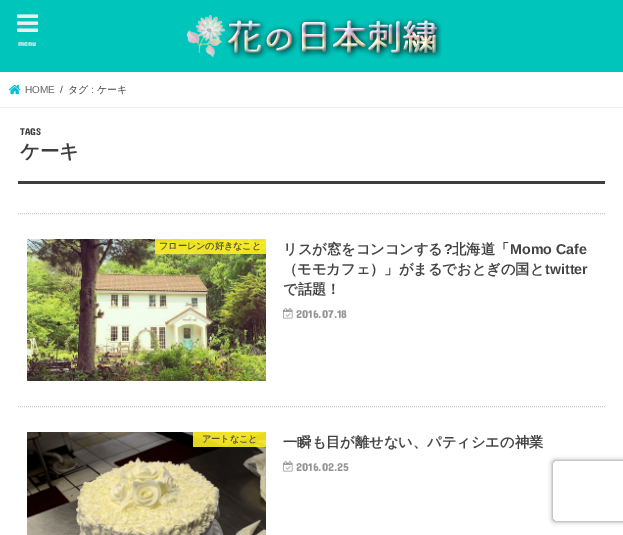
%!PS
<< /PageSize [623 535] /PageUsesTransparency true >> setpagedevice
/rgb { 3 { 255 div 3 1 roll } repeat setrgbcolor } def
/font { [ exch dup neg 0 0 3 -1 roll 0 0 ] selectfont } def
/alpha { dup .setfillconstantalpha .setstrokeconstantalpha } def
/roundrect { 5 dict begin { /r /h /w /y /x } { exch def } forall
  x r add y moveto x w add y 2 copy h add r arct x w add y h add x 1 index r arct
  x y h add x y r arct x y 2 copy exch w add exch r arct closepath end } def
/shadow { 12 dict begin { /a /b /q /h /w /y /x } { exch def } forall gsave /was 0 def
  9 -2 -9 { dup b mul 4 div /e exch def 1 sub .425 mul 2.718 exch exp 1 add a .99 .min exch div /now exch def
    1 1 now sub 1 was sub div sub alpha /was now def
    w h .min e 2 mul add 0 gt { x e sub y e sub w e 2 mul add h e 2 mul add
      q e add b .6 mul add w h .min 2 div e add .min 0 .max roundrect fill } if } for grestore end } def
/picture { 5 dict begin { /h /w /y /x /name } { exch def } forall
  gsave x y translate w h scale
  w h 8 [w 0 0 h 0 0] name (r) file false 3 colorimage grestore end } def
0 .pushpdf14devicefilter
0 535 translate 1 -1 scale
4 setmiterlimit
255 255 255 rgb
0 0 623 535 rectfill
0 197 187 rgb
0 0 623 72 rectfill
(img/1.rgb) 17 14 22 18 picture
(img/2.rgb) 186 15 256 44 picture
247 247 247 rgb
0 107 623 1 rectfill
(img/3.rgb) 8 84 13 11 picture
221 221 221 rgb
0 108 623 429 0 0.5 1 shadow
255 255 255 rgb
0 108 623 427 rectfill
62 62 62 rgb
18 181 587 3 rectfill
204 204 204 rgb
[1 1] 0 setdash
18 213.5 moveto 605 213.5 lineto stroke
18 406.5 moveto 605 406.5 lineto stroke
(img/4.rgb) 27 239 239 142 picture
0.9 alpha
252 238 33 rgb
155 239 111 15 rectfill
1 alpha
(img/5.rgb) 283 308 10 11 picture
(img/6.rgb) 27 432 239 103 picture
0.9 alpha
193 432 73 15 rectfill
1 alpha
(img/5.rgb) 283 461 10 11 picture
gsave
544 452 moveto 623 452 lineto 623 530 lineto 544 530 lineto closepath 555 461 moveto 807 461 lineto 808 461 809 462 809 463 curveto 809 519 lineto 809 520 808 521 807 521 curveto 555 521 lineto 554 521 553 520 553 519 curveto 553 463 lineto 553 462 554 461 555 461 curveto closepath eoclip newpath
128 128 128 rgb
553 461 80 60 2 2.5 1 shadow
grestore
/ConcertOne-Regular 8 font
238 238 238 rgb
18 46 moveto (menu) show
/LiberationSans-Regular 10 font
102 102 102 rgb
25 93 moveto (HOME) show
62 62 62 rgb
60 93 moveto (/) show
/WenQuanYiZenHei-Medium 10 font
68 93 moveto (タグ) show
/LiberationSans-Regular 10 font
91 93 moveto (:) show
/WenQuanYiZenHei-Medium 10 font
97 93 moveto (ケーキ) show
/ConcertOne-Regular 10 font
20 135 moveto (TAGS) show
/WenQuanYiZenHei-Bold 19.5 font
20 158 moveto (ケーキ) show
/WenQuanYiZenHei-Bold 9.1 font
85 84 65 rgb
159 249 moveto (フローレンの好きなこと) show
/WenQuanYiZenHei-Bold 14.25 font
68 68 68 rgb
283 254 moveto (リスが窓をコンコンする) show
/LiberationSans-Bold 14.25 font
444 254 moveto (?) show
/WenQuanYiZenHei-Bold 14.25 font
452 254 moveto (北海道「) show
/LiberationSans-Bold 14.25 font
510 254 moveto (Momo Cafe) show
/WenQuanYiZenHei-Bold 14.25 font
283 274 moveto (（モモカフェ）」がまるでおとぎの国と) show
/LiberationSans-Bold 14.25 font
545 274 moveto (twitter) show
/WenQuanYiZenHei-Bold 14.25 font
283 294 moveto (で話題！) show
/ConcertOne-Regular 11.5 font
148 148 148 rgb
296 318 moveto (2016.07.18) show
/WenQuanYiZenHei-Bold 9.1 font
85 84 65 rgb
202 442 moveto (アートなこと) show
/WenQuanYiZenHei-Bold 14.25 font
68 68 68 rgb
283 447 moveto (一瞬も目が離せない、パティシエの神業) show
/ConcertOne-Regular 11.5 font
148 148 148 rgb
296 471 moveto (2016.02.25) show
.poppdf14devicefilter showpage
